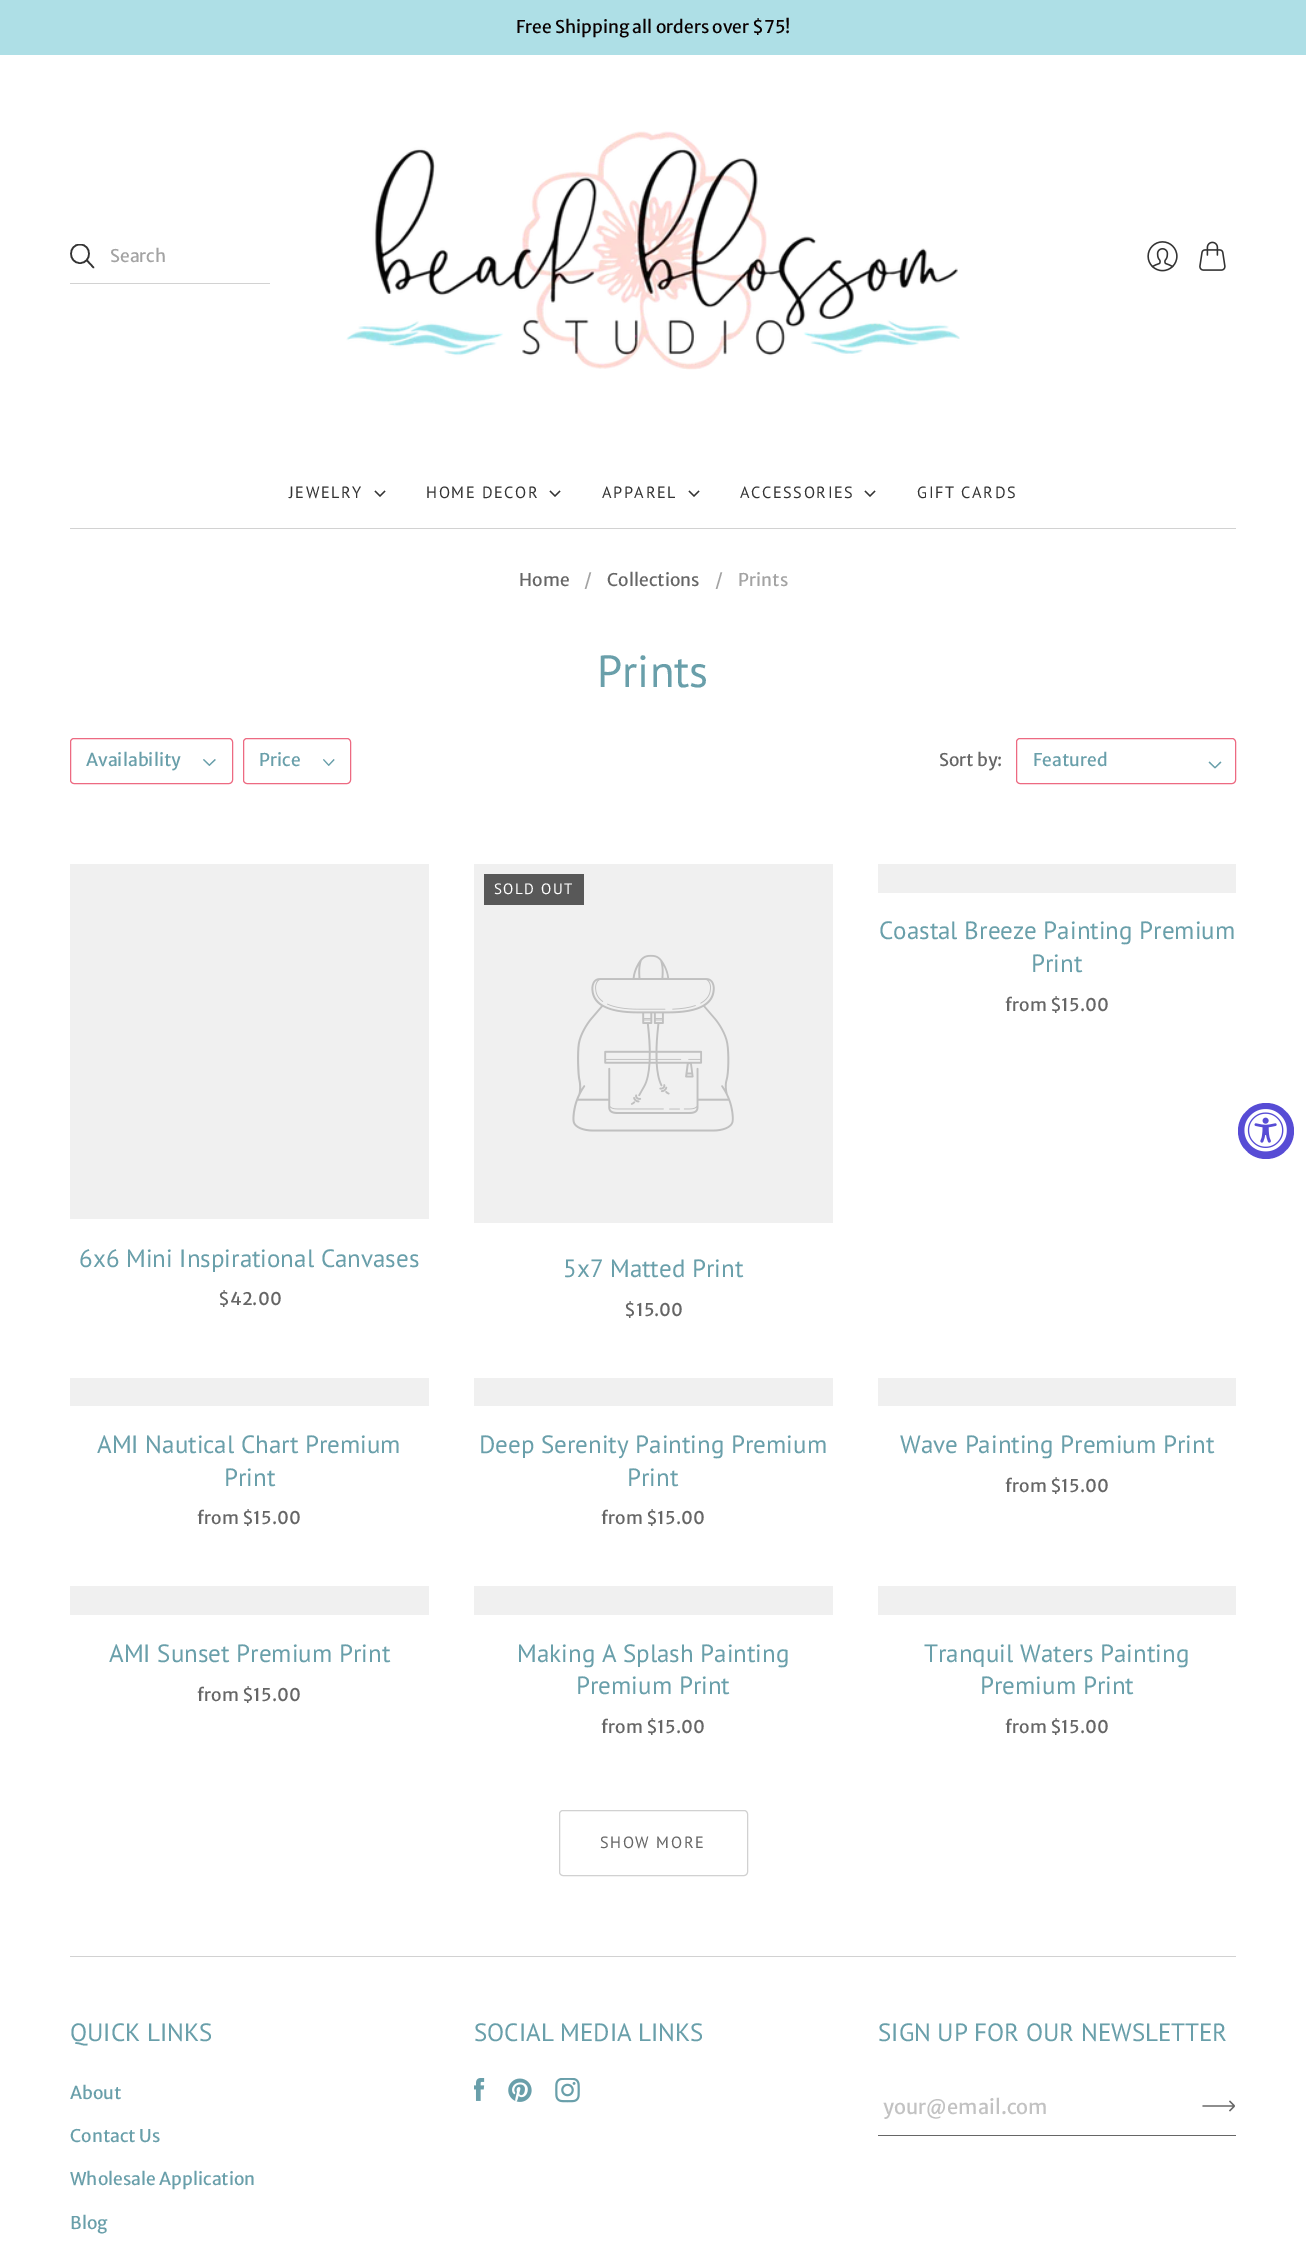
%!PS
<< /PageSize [1306 2260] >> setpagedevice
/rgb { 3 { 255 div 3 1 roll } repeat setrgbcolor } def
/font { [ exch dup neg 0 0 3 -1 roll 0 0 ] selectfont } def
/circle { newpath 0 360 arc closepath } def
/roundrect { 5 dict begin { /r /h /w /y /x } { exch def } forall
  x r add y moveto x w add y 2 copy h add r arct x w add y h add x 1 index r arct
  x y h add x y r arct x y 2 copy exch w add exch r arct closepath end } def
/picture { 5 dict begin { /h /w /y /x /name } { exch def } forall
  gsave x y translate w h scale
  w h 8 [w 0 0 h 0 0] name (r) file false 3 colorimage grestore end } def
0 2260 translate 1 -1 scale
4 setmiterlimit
255 255 255 rgb
0 0 1306 2260 rectfill
174 223 230 rgb
0 0 1306 55 rectfill
gsave
70 244 25 25 rectclip
51 51 51 rgb
1.6 setlinewidth
1 setlinecap
1 setlinejoin
80 263 moveto 92 263 92 244.5 80 244.5 curveto 68 244.5 68 263 80 263 curveto closepath stroke
grestore
51 51 51 rgb
1.6 setlinewidth
1 setlinecap
1 setlinejoin
93.5 267.5 moveto 87 260.5 lineto stroke
210 210 210 rgb
70 283 200 1 rectfill
(img/1.rgb) 1147 241 31 31 picture
(img/2.rgb) 1199 241 27 30 picture
70 528 1166 1 rectfill
(img/3.rgb) 346 131 614 239 picture
51 51 51 rgb
1.2 setlinewidth
0 setlinecap
0 setlinejoin
375 491 moveto 380 496 lineto 385 491 lineto stroke
550 491 moveto 555 496 lineto 560 491 lineto stroke
689 491 moveto 694 496 lineto 699 491 lineto stroke
865 491 moveto 870 496 lineto 875 491 lineto stroke
237 106 130 rgb
1 setlinewidth
70.5 738.5 162 45 3.5 roundrect stroke
(img/4.rgb) 203 759 13 7 picture
243.5 738.5 107 45 3.5 roundrect stroke
(img/5.rgb) 323 759 12 7 picture
1016.5 738.5 219 45 3.5 roundrect stroke
(img/6.rgb) 1208 761 14 8 picture
240 240 240 rgb
474 864 359 359 rectfill
88 88 88 rgb
484 874 100 31 rectfill
(img/7.rgb) 572 954 162 178 picture
[
  [878 864 358 29 240 240 240]
  [70 864 359 355 240 240 240]
  [70 1378 359 28 240 240 240]
  [474 1378 359 28 240 240 240]
  [878 1378 358 28 240 240 240]
  [70 1586 359 29 240 240 240]
  [474 1586 359 29 240 240 240]
  [878 1586 358 29 240 240 240]
] { aload pop rgb rectfill } forall
209 209 209 rgb
559.5 1810.5 188 65 3.5 roundrect stroke
87 76 213 rgb
1266 1131 28 circle fill
(img/8.rgb) 1244 1109 43 43 picture
210 210 210 rgb
70 1956 1166 1 rectfill
(img/9.rgb) 474 2078 11 23 picture
(img/10.rgb) 508 2078 24 24 picture
(img/11.rgb) 555 2078 25 25 picture
102 102 102 rgb
878 2135 358 1 rectfill
1.2 setlinewidth
1202.5 2106 moveto 1234.5 2106 lineto 1234.5 2106 moveto 1229.5 2101 lineto 1234.5 2106 moveto 1229.5 2111 lineto stroke
/MerriweatherSans-Regular 17.5 font
10 1 1 rgb
516 33 moveto (Free Shipping all orders over $75!) show
163 163 163 rgb
110 262 moveto (Search) show
/PTSans-Regular 16.25 font
51 51 51 rgb
289 498 moveto 1.6 0 (JEWELRY) ashow
426 498 moveto 1.6 0 (HOME DECOR) ashow
602 498 moveto 1.6 0 (APPAREL) ashow
740 498 moveto 1.6 0 (ACCESSORIES) ashow
917 498 moveto 1.6 0 (GIFT CARDS) ashow
/MerriweatherSans-Regular 17.5 font
102 102 102 rgb
519 586 moveto (Home) show
163 163 163 rgb
584 586 moveto (/) show
102 102 102 rgb
607 586 moveto (Collections) show
163 163 163 rgb
715 586 moveto (/) show
738 586 moveto (Prints) show
/PTSans-Regular 45 font
105 159 170 rgb
597 687 moveto (Prints) show
/MerriweatherSans-Regular 17.5 font
86 766 moveto (Availability) show
259 766 moveto (Price) show
102 102 102 rgb
939 766 moveto (Sort by:) show
105 159 170 rgb
1033 766 moveto (Featured) show
/PTSans-Regular 15 font
255 255 255 rgb
494 894 moveto 1.5 0 (SOLD OUT) ashow
/PTSans-Regular 25 font
105 159 170 rgb
563 1277 moveto (5x7 Matted Print) show
/MerriweatherSans-Regular 17.5 font
102 102 102 rgb
624 1316 moveto ($15.00) show
/PTSans-Regular 25 font
105 159 170 rgb
879 939 moveto (Coastal Breeze Painting Premium) show
1031 972 moveto (Print) show
/MerriweatherSans-Regular 17.5 font
102 102 102 rgb
1005 1011 moveto (from $15.00) show
/PTSans-Regular 25 font
105 159 170 rgb
79 1267 moveto (6x6 Mini Inspirational Canvases) show
/MerriweatherSans-Regular 17.5 font
102 102 102 rgb
218 1305 moveto ($42.00) show
/PTSans-Regular 25 font
105 159 170 rgb
97 1453 moveto (AMI Nautical Chart Premium) show
224 1486 moveto (Print) show
/MerriweatherSans-Regular 17.5 font
102 102 102 rgb
197 1524 moveto (from $15.00) show
/PTSans-Regular 25 font
105 159 170 rgb
479 1453 moveto (Deep Serenity Painting Premium) show
627 1486 moveto (Print) show
/MerriweatherSans-Regular 17.5 font
102 102 102 rgb
601 1524 moveto (from $15.00) show
/PTSans-Regular 25 font
105 159 170 rgb
900 1453 moveto (Wave Painting Premium Print) show
/MerriweatherSans-Regular 17.5 font
102 102 102 rgb
1005 1492 moveto (from $15.00) show
/PTSans-Regular 25 font
105 159 170 rgb
109 1662 moveto (AMI Sunset Premium Print) show
/MerriweatherSans-Regular 17.5 font
102 102 102 rgb
197 1701 moveto (from $15.00) show
/PTSans-Regular 25 font
105 159 170 rgb
517 1662 moveto (Making A Splash Painting) show
576 1694 moveto (Premium Print) show
/MerriweatherSans-Regular 17.5 font
102 102 102 rgb
601 1733 moveto (from $15.00) show
/PTSans-Regular 25 font
105 159 170 rgb
924 1662 moveto (Tranquil Waters Painting) show
980 1694 moveto (Premium Print) show
/MerriweatherSans-Regular 17.5 font
102 102 102 rgb
1005 1733 moveto (from $15.00) show
/PTSans-Regular 16.25 font
600 1848 moveto 1.6 0 (SHOW MORE) ashow
/PTSans-Regular 25 font
105 159 170 rgb
70 2041 moveto (QUICK LINKS) show
/MerriweatherSans-Regular 17.5 font
[
  [(About) 70 2099]
  [(Contact Us) 70 2142]
  [(Wholesale Application) 70 2185]
  [(Blog) 70 2229]
] { aload pop moveto show } forall
/PTSans-Regular 25 font
474 2041 moveto (SOCIAL MEDIA LINKS) show
878 2041 moveto (SIGN UP FOR OUR NEWSLETTER) show
/MerriweatherSans-Regular 20 font
194 194 194 rgb
883 2114 moveto (your@email.com) show
showpage
